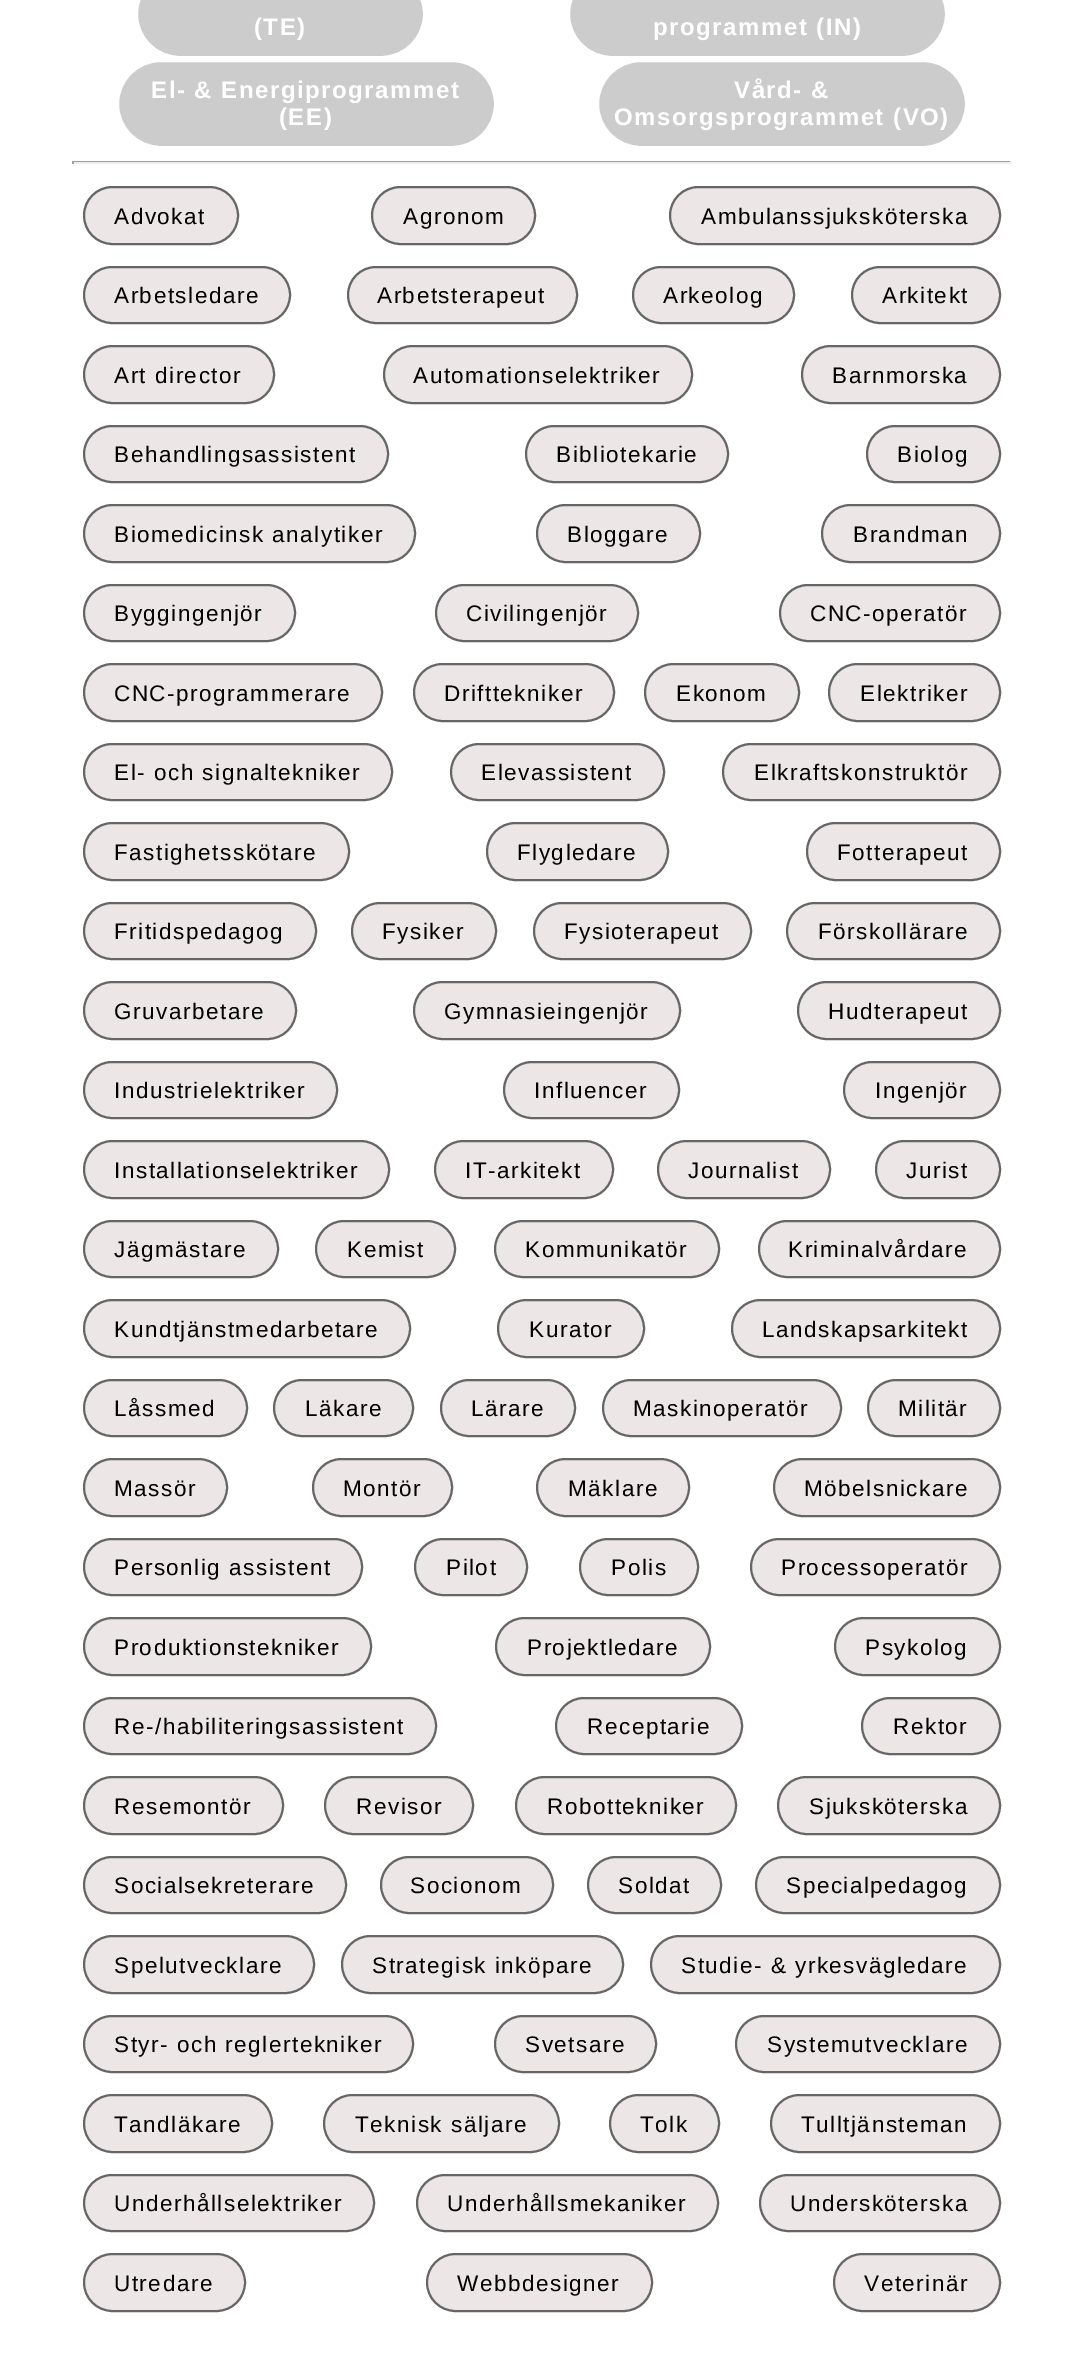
%!PS
<< /PageSize [1082 2379] >> setpagedevice
/rgb { 3 { 255 div 3 1 roll } repeat setrgbcolor } def
/font { [ exch dup neg 0 0 3 -1 roll 0 0 ] selectfont } def
/roundrect { 5 dict begin { /r /h /w /y /x } { exch def } forall
  x r add y moveto x w add y 2 copy h add r arct x w add y h add x 1 index r arct
  x y h add x y r arct x y 2 copy exch w add exch r arct closepath end } def
0 2379 translate 1 -1 scale
4 setmiterlimit
255 255 255 rgb
0 0 1082 2379 rectfill
204 204 204 rgb
136.5 -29.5 288 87 43.5 roundrect gsave fill grestore
255 255 255 rgb
3 setlinewidth
stroke
204 204 204 rgb
568.5 -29.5 378 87 43.5 roundrect gsave fill grestore
255 255 255 rgb
stroke
204 204 204 rgb
117.5 60.5 378 87 43.5 roundrect gsave fill grestore
255 255 255 rgb
stroke
204 204 204 rgb
597.5 60.5 369 87 43.5 roundrect gsave fill grestore
255 255 255 rgb
stroke
[
  [72 161 939 1 159 159 159]
  [1010 161 2 3 238 238 238]
  [72 162 939 2 238 238 238]
  [72 161 2 3 159 159 159]
] { aload pop rgb rectfill } forall
237 230 230 rgb
84 187 154 57 28.5 roundrect gsave fill grestore
102 102 102 rgb
2 setlinewidth
stroke
237 230 230 rgb
372 187 163 57 28.5 roundrect gsave fill grestore
102 102 102 rgb
stroke
237 230 230 rgb
670 187 330 57 28.5 roundrect gsave fill grestore
102 102 102 rgb
stroke
237 230 230 rgb
84 267 206 56 28 roundrect gsave fill grestore
102 102 102 rgb
stroke
237 230 230 rgb
348 267 229 56 28 roundrect gsave fill grestore
102 102 102 rgb
stroke
237 230 230 rgb
633 267 161 56 28 roundrect gsave fill grestore
102 102 102 rgb
stroke
237 230 230 rgb
852 267 148 56 28 roundrect gsave fill grestore
102 102 102 rgb
stroke
237 230 230 rgb
84 346 190 57 28.5 roundrect gsave fill grestore
102 102 102 rgb
stroke
237 230 230 rgb
384 346 308 57 28.5 roundrect gsave fill grestore
102 102 102 rgb
stroke
237 230 230 rgb
802 346 198 57 28.5 roundrect gsave fill grestore
102 102 102 rgb
stroke
237 230 230 rgb
84 426 304 56 28 roundrect gsave fill grestore
102 102 102 rgb
stroke
237 230 230 rgb
526 426 202 56 28 roundrect gsave fill grestore
102 102 102 rgb
stroke
237 230 230 rgb
867 426 133 56 28 roundrect gsave fill grestore
102 102 102 rgb
stroke
237 230 230 rgb
84 505 331 57 28.5 roundrect gsave fill grestore
102 102 102 rgb
stroke
237 230 230 rgb
537 505 163 57 28.5 roundrect gsave fill grestore
102 102 102 rgb
stroke
237 230 230 rgb
822 505 178 57 28.5 roundrect gsave fill grestore
102 102 102 rgb
stroke
237 230 230 rgb
84 585 211 56 28 roundrect gsave fill grestore
102 102 102 rgb
stroke
237 230 230 rgb
436 585 202 56 28 roundrect gsave fill grestore
102 102 102 rgb
stroke
237 230 230 rgb
780 585 220 56 28 roundrect gsave fill grestore
102 102 102 rgb
stroke
237 230 230 rgb
84 664 298 57 28.5 roundrect gsave fill grestore
102 102 102 rgb
stroke
237 230 230 rgb
414 664 200 57 28.5 roundrect gsave fill grestore
102 102 102 rgb
stroke
237 230 230 rgb
645 664 154 57 28.5 roundrect gsave fill grestore
102 102 102 rgb
stroke
237 230 230 rgb
829 664 171 57 28.5 roundrect gsave fill grestore
102 102 102 rgb
stroke
237 230 230 rgb
84 744 308 56 28 roundrect gsave fill grestore
102 102 102 rgb
stroke
237 230 230 rgb
451 744 213 56 28 roundrect gsave fill grestore
102 102 102 rgb
stroke
237 230 230 rgb
723 744 277 56 28 roundrect gsave fill grestore
102 102 102 rgb
stroke
237 230 230 rgb
84 823 265 57 28.5 roundrect gsave fill grestore
102 102 102 rgb
stroke
237 230 230 rgb
487 823 181 57 28.5 roundrect gsave fill grestore
102 102 102 rgb
stroke
237 230 230 rgb
807 823 193 57 28.5 roundrect gsave fill grestore
102 102 102 rgb
stroke
237 230 230 rgb
84 903 232 56 28 roundrect gsave fill grestore
102 102 102 rgb
stroke
237 230 230 rgb
352 903 144 56 28 roundrect gsave fill grestore
102 102 102 rgb
stroke
237 230 230 rgb
534 903 217 56 28 roundrect gsave fill grestore
102 102 102 rgb
stroke
237 230 230 rgb
787 903 213 56 28 roundrect gsave fill grestore
102 102 102 rgb
stroke
237 230 230 rgb
84 982 212 57 28.5 roundrect gsave fill grestore
102 102 102 rgb
stroke
237 230 230 rgb
414 982 266 57 28.5 roundrect gsave fill grestore
102 102 102 rgb
stroke
237 230 230 rgb
798 982 202 57 28.5 roundrect gsave fill grestore
102 102 102 rgb
stroke
237 230 230 rgb
84 1062 253 56 28 roundrect gsave fill grestore
102 102 102 rgb
stroke
237 230 230 rgb
504 1062 175 56 28 roundrect gsave fill grestore
102 102 102 rgb
stroke
237 230 230 rgb
844 1062 156 56 28 roundrect gsave fill grestore
102 102 102 rgb
stroke
237 230 230 rgb
84 1141 305 57 28.5 roundrect gsave fill grestore
102 102 102 rgb
stroke
237 230 230 rgb
435 1141 178 57 28.5 roundrect gsave fill grestore
102 102 102 rgb
stroke
237 230 230 rgb
658 1141 172 57 28.5 roundrect gsave fill grestore
102 102 102 rgb
stroke
237 230 230 rgb
876 1141 124 57 28.5 roundrect gsave fill grestore
102 102 102 rgb
stroke
237 230 230 rgb
84 1221 194 56 28 roundrect gsave fill grestore
102 102 102 rgb
stroke
237 230 230 rgb
316 1221 139 56 28 roundrect gsave fill grestore
102 102 102 rgb
stroke
237 230 230 rgb
495 1221 224 56 28 roundrect gsave fill grestore
102 102 102 rgb
stroke
237 230 230 rgb
759 1221 241 56 28 roundrect gsave fill grestore
102 102 102 rgb
stroke
237 230 230 rgb
84 1300 326 57 28.5 roundrect gsave fill grestore
102 102 102 rgb
stroke
237 230 230 rgb
498 1300 146 57 28.5 roundrect gsave fill grestore
102 102 102 rgb
stroke
237 230 230 rgb
732 1300 268 57 28.5 roundrect gsave fill grestore
102 102 102 rgb
stroke
237 230 230 rgb
84 1380 163 56 28 roundrect gsave fill grestore
102 102 102 rgb
stroke
237 230 230 rgb
274 1380 139 56 28 roundrect gsave fill grestore
102 102 102 rgb
stroke
237 230 230 rgb
441 1380 134 56 28 roundrect gsave fill grestore
102 102 102 rgb
stroke
237 230 230 rgb
603 1380 238 56 28 roundrect gsave fill grestore
102 102 102 rgb
stroke
237 230 230 rgb
868 1380 132 56 28 roundrect gsave fill grestore
102 102 102 rgb
stroke
237 230 230 rgb
84 1459 143 57 28.5 roundrect gsave fill grestore
102 102 102 rgb
stroke
237 230 230 rgb
313 1459 139 57 28.5 roundrect gsave fill grestore
102 102 102 rgb
stroke
237 230 230 rgb
537 1459 152 57 28.5 roundrect gsave fill grestore
102 102 102 rgb
stroke
237 230 230 rgb
774 1459 226 57 28.5 roundrect gsave fill grestore
102 102 102 rgb
stroke
237 230 230 rgb
84 1539 278 56 28 roundrect gsave fill grestore
102 102 102 rgb
stroke
237 230 230 rgb
415 1539 112 56 28 roundrect gsave fill grestore
102 102 102 rgb
stroke
237 230 230 rgb
580 1539 118 56 28 roundrect gsave fill grestore
102 102 102 rgb
stroke
237 230 230 rgb
751 1539 249 56 28 roundrect gsave fill grestore
102 102 102 rgb
stroke
237 230 230 rgb
84 1618 287 57 28.5 roundrect gsave fill grestore
102 102 102 rgb
stroke
237 230 230 rgb
496 1618 214 57 28.5 roundrect gsave fill grestore
102 102 102 rgb
stroke
237 230 230 rgb
835 1618 165 57 28.5 roundrect gsave fill grestore
102 102 102 rgb
stroke
237 230 230 rgb
84 1698 352 56 28 roundrect gsave fill grestore
102 102 102 rgb
stroke
237 230 230 rgb
556 1698 186 56 28 roundrect gsave fill grestore
102 102 102 rgb
stroke
237 230 230 rgb
862 1698 138 56 28 roundrect gsave fill grestore
102 102 102 rgb
stroke
237 230 230 rgb
84 1777 199 57 28.5 roundrect gsave fill grestore
102 102 102 rgb
stroke
237 230 230 rgb
325 1777 148 57 28.5 roundrect gsave fill grestore
102 102 102 rgb
stroke
237 230 230 rgb
516 1777 220 57 28.5 roundrect gsave fill grestore
102 102 102 rgb
stroke
237 230 230 rgb
778 1777 222 57 28.5 roundrect gsave fill grestore
102 102 102 rgb
stroke
237 230 230 rgb
84 1857 262 56 28 roundrect gsave fill grestore
102 102 102 rgb
stroke
237 230 230 rgb
381 1857 172 56 28 roundrect gsave fill grestore
102 102 102 rgb
stroke
237 230 230 rgb
588 1857 133 56 28 roundrect gsave fill grestore
102 102 102 rgb
stroke
237 230 230 rgb
756 1857 244 56 28 roundrect gsave fill grestore
102 102 102 rgb
stroke
237 230 230 rgb
84 1936 230 57 28.5 roundrect gsave fill grestore
102 102 102 rgb
stroke
237 230 230 rgb
342 1936 281 57 28.5 roundrect gsave fill grestore
102 102 102 rgb
stroke
237 230 230 rgb
651 1936 349 57 28.5 roundrect gsave fill grestore
102 102 102 rgb
stroke
237 230 230 rgb
84 2016 329 56 28 roundrect gsave fill grestore
102 102 102 rgb
stroke
237 230 230 rgb
495 2016 161 56 28 roundrect gsave fill grestore
102 102 102 rgb
stroke
237 230 230 rgb
736 2016 264 56 28 roundrect gsave fill grestore
102 102 102 rgb
stroke
237 230 230 rgb
84 2095 188 57 28.5 roundrect gsave fill grestore
102 102 102 rgb
stroke
237 230 230 rgb
324 2095 235 57 28.5 roundrect gsave fill grestore
102 102 102 rgb
stroke
237 230 230 rgb
610 2095 109 57 28.5 roundrect gsave fill grestore
102 102 102 rgb
stroke
237 230 230 rgb
771 2095 229 57 28.5 roundrect gsave fill grestore
102 102 102 rgb
stroke
237 230 230 rgb
84 2175 290 56 28 roundrect gsave fill grestore
102 102 102 rgb
stroke
237 230 230 rgb
417 2175 301 56 28 roundrect gsave fill grestore
102 102 102 rgb
stroke
237 230 230 rgb
760 2175 240 56 28 roundrect gsave fill grestore
102 102 102 rgb
stroke
237 230 230 rgb
84 2254 161 57 28.5 roundrect gsave fill grestore
102 102 102 rgb
stroke
237 230 230 rgb
427 2254 225 57 28.5 roundrect gsave fill grestore
102 102 102 rgb
stroke
237 230 230 rgb
834 2254 166 57 28.5 roundrect gsave fill grestore
102 102 102 rgb
stroke
/LiberationSans-Bold 24 font
255 255 255 rgb
254 35 moveto 1.5 0 (\(TE\)) ashow
653 35 moveto 1.5 0 (programmet \(IN\)) ashow
151 98 moveto 1.5 0 (El- & Energiprogrammet) ashow
279 125 moveto 1.5 0 (\(EE\)) ashow
734 98 moveto 1.5 0 (Vård- &) ashow
614 125 moveto 1.5 0 (Omsorgsprogrammet \(VO\)) ashow
/LiberationSans-Regular 22.5 font
0 0 0 rgb
114 224 moveto 1.5 0 (Advokat) ashow
403 224 moveto 1.5 0 (Agronom) ashow
701 224 moveto 1.5 0 (Ambulanssjuksköterska) ashow
114 303 moveto 1.5 0 (Arbetsledare) ashow
377 303 moveto 1.5 0 (Arbetsterapeut) ashow
663 303 moveto 1.5 0 (Arkeolog) ashow
882 303 moveto 1.5 0 (Arkitekt) ashow
114 383 moveto 1.5 0 (Art director) ashow
413 383 moveto 1.5 0 (Automationselektriker) ashow
832 383 moveto 1.5 0 (Barnmorska) ashow
114 462 moveto 1.5 0 (Behandlingsassistent) ashow
556 462 moveto 1.5 0 (Bibliotekarie) ashow
897 462 moveto 1.5 0 (Biolog) ashow
114 542 moveto 1.5 0 (Biomedicinsk analytiker) ashow
567 542 moveto 1.5 0 (Bloggare) ashow
853 542 moveto 1.5 0 (Brandman) ashow
114 621 moveto 1.5 0 (Byggingenjör) ashow
466 621 moveto 1.5 0 (Civilingenjör) ashow
810 621 moveto 1.5 0 (CNC-operatör) ashow
114 701 moveto 1.5 0 (CNC-programmerare) ashow
444 701 moveto 1.5 0 (Drifttekniker) ashow
676 701 moveto 1.5 0 (Ekonom) ashow
860 701 moveto 1.5 0 (Elektriker) ashow
114 780 moveto 1.5 0 (El- och signaltekniker) ashow
481 780 moveto 1.5 0 (Elevassistent) ashow
754 780 moveto 1.5 0 (Elkraftskonstruktör) ashow
114 860 moveto 1.5 0 (Fastighetsskötare) ashow
517 860 moveto 1.5 0 (Flygledare) ashow
837 860 moveto 1.5 0 (Fotterapeut) ashow
114 939 moveto 1.5 0 (Fritidspedagog) ashow
382 939 moveto 1.5 0 (Fysiker) ashow
564 939 moveto 1.5 0 (Fysioterapeut) ashow
818 939 moveto 1.5 0 (Förskollärare) ashow
114 1019 moveto 1.5 0 (Gruvarbetare) ashow
444 1019 moveto 1.5 0 (Gymnasieingenjör) ashow
828 1019 moveto 1.5 0 (Hudterapeut) ashow
114 1098 moveto 1.5 0 (Industrielektriker) ashow
534 1098 moveto 1.5 0 (Influencer) ashow
875 1098 moveto 1.5 0 (Ingenjör) ashow
114 1178 moveto 1.5 0 (Installationselektriker) ashow
465 1178 moveto 1.5 0 (IT-arkitekt) ashow
688 1178 moveto 1.5 0 (Journalist) ashow
906 1178 moveto 1.5 0 (Jurist) ashow
114 1257 moveto 1.5 0 (Jägmästare) ashow
347 1257 moveto 1.5 0 (Kemist) ashow
525 1257 moveto 1.5 0 (Kommunikatör) ashow
788 1257 moveto 1.5 0 (Kriminalvårdare) ashow
114 1337 moveto 1.5 0 (Kundtjänstmedarbetare) ashow
529 1337 moveto 1.5 0 (Kurator) ashow
762 1337 moveto 1.5 0 (Landskapsarkitekt) ashow
114 1416 moveto 1.5 0 (Låssmed) ashow
305 1416 moveto 1.5 0 (Läkare) ashow
471 1416 moveto 1.5 0 (Lärare) ashow
633 1416 moveto 1.5 0 (Maskinoperatör) ashow
898 1416 moveto 1.5 0 (Militär) ashow
114 1496 moveto 1.5 0 (Massör) ashow
343 1496 moveto 1.5 0 (Montör) ashow
568 1496 moveto 1.5 0 (Mäklare) ashow
804 1496 moveto 1.5 0 (Möbelsnickare) ashow
114 1575 moveto 1.5 0 (Personlig assistent) ashow
446 1575 moveto 1.5 0 (Pilot) ashow
611 1575 moveto 1.5 0 (Polis) ashow
781 1575 moveto 1.5 0 (Processoperatör) ashow
114 1655 moveto 1.5 0 (Produktionstekniker) ashow
527 1655 moveto 1.5 0 (Projektledare) ashow
865 1655 moveto 1.5 0 (Psykolog) ashow
114 1734 moveto 1.5 0 (Re-/habiliteringsassistent) ashow
587 1734 moveto 1.5 0 (Receptarie) ashow
893 1734 moveto 1.5 0 (Rektor) ashow
114 1814 moveto 1.5 0 (Resemontör) ashow
356 1814 moveto 1.5 0 (Revisor) ashow
547 1814 moveto 1.5 0 (Robottekniker) ashow
809 1814 moveto 1.5 0 (Sjuksköterska) ashow
114 1893 moveto 1.5 0 (Socialsekreterare) ashow
410 1893 moveto 1.5 0 (Socionom) ashow
618 1893 moveto 1.5 0 (Soldat) ashow
786 1893 moveto 1.5 0 (Specialpedagog) ashow
114 1973 moveto 1.5 0 (Spelutvecklare) ashow
372 1973 moveto 1.5 0 (Strategisk inköpare) ashow
681 1973 moveto 1.5 0 (Studie- & yrkesvägledare) ashow
114 2052 moveto 1.5 0 (Styr- och reglertekniker) ashow
525 2052 moveto 1.5 0 (Svetsare) ashow
767 2052 moveto 1.5 0 (Systemutvecklare) ashow
114 2132 moveto 1.5 0 (Tandläkare) ashow
355 2132 moveto 1.5 0 (Teknisk säljare) ashow
640 2132 moveto 1.5 0 (Tolk) ashow
801 2132 moveto 1.5 0 (Tulltjänsteman) ashow
114 2211 moveto 1.5 0 (Underhållselektriker) ashow
447 2211 moveto 1.5 0 (Underhållsmekaniker) ashow
790 2211 moveto 1.5 0 (Undersköterska) ashow
114 2291 moveto 1.5 0 (Utredare) ashow
457 2291 moveto 1.5 0 (Webbdesigner) ashow
864 2291 moveto 1.5 0 (Veterinär) ashow
showpage
